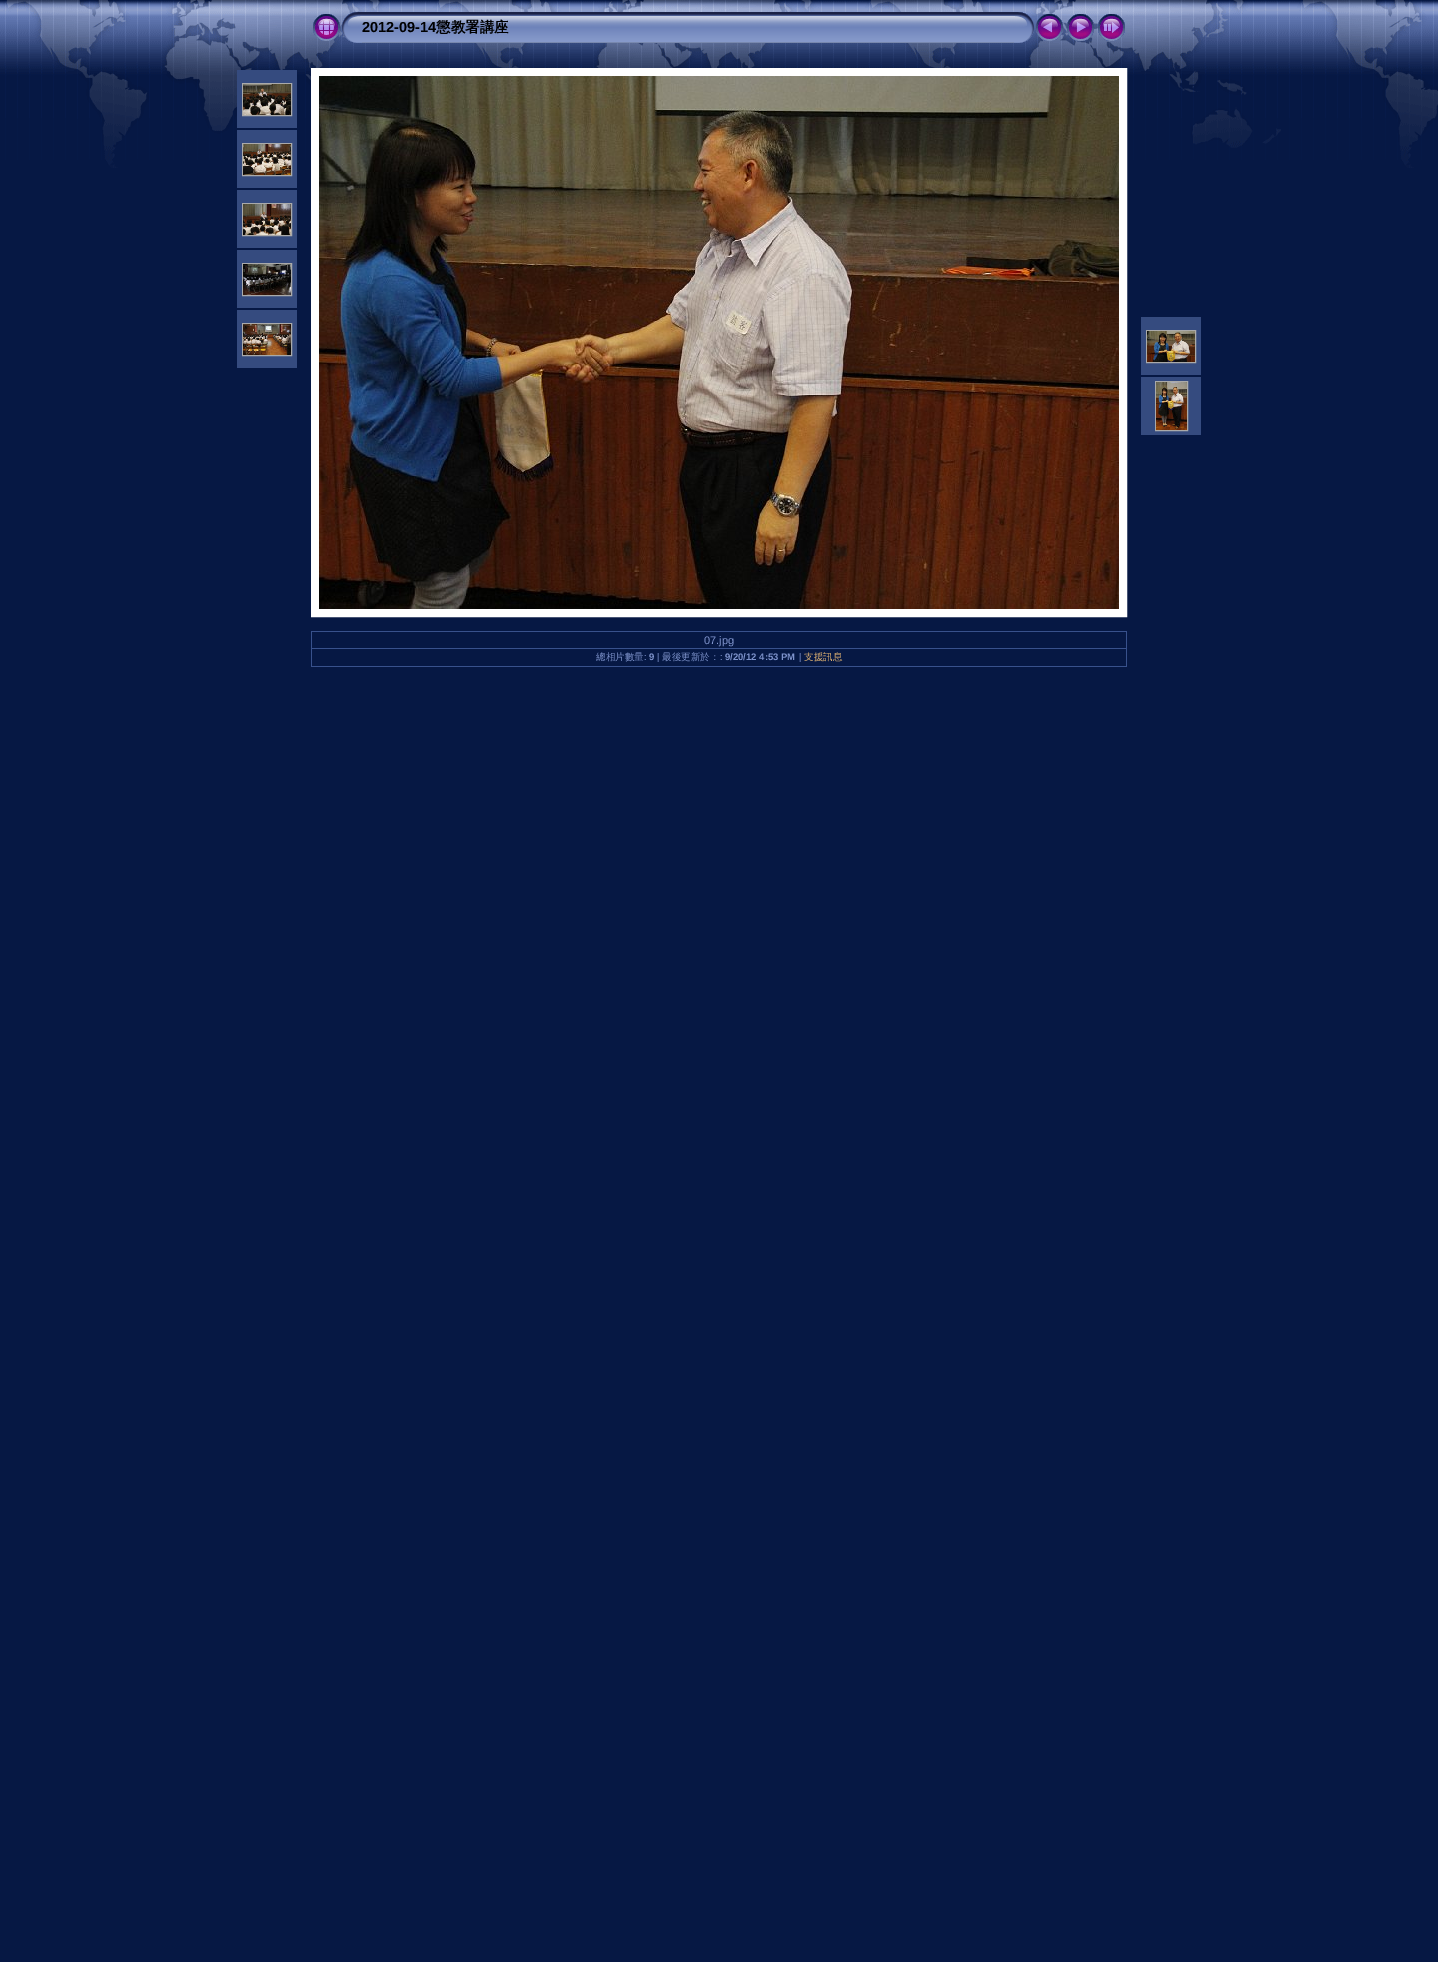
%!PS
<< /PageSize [1438 1962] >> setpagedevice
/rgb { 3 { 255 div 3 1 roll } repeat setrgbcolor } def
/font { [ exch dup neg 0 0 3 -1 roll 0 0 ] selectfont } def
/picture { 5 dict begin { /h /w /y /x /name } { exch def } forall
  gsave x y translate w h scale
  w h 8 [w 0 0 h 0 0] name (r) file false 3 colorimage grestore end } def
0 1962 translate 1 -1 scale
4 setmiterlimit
6 24 68 rgb
0 0 1438 1962 rectfill
(img/1.rgb) 0 0 1438 168 picture
(img/2.rgb) 313 14 27 27 picture
(img/3.rgb) 342 12 20 31 picture
(img/4.rgb) 362 12 652 31 picture
(img/5.rgb) 1014 12 20 31 picture
(img/6.rgb) 1036 14 27 27 picture
(img/7.rgb) 1067 14 27 27 picture
(img/8.rgb) 1098 14 27 27 picture
53 75 127 rgb
237 70 60 58 rectfill
170 170 170 rgb
242.5 83.5 49 32 rectstroke
(img/9.rgb) 243 84 48 31 picture
53 75 127 rgb
237 130 60 58 rectfill
170 170 170 rgb
242.5 143.5 49 32 rectstroke
(img/10.rgb) 243 144 48 31 picture
53 75 127 rgb
237 190 60 58 rectfill
170 170 170 rgb
242.5 203.5 49 32 rectstroke
(img/11.rgb) 243 204 48 31 picture
53 75 127 rgb
237 250 60 58 rectfill
170 170 170 rgb
242.5 263.5 49 32 rectstroke
(img/12.rgb) 243 264 48 31 picture
53 75 127 rgb
237 310 60 58 rectfill
170 170 170 rgb
242.5 323.5 49 32 rectstroke
(img/13.rgb) 243 324 48 31 picture
255 255 255 rgb
8 setlinewidth
315 72 808 541 rectstroke
(img/14.rgb) 319 76 800 533 picture
53 75 127 rgb
1141 317 60 58 rectfill
170 170 170 rgb
1 setlinewidth
1146.5 330.5 49 32 rectstroke
(img/15.rgb) 1147 331 48 31 picture
53 75 127 rgb
1141 377 60 58 rectfill
170 170 170 rgb
1155.5 381.5 32 49 rectstroke
(img/16.rgb) 1156 382 31 48 picture
[
  [311 631 816 1 56 81 140]
  [311 648 816 1 56 81 140]
  [1126 648 1 19 56 81 140]
  [1126 631 1 18 56 81 140]
  [311 666 816 1 56 81 140]
  [311 648 1 19 56 81 140]
  [311 631 1 18 56 81 140]
] { aload pop rgb rectfill } forall
/LiberationSans-Bold 14.5 font
0 0 0 rgb
362 32 moveto (2012-09-14) show
/WenQuanYiZenHei-Bold 14.5 font
436 32 moveto (懲教署講座) show
/LiberationSans-Regular 11 font
126 147 204 rgb
704 644 moveto (07.jpg) show
/WenQuanYiZenHei-Medium 9.5 font
596 660 moveto (總相片數量) show
/LiberationSans-Regular 9.5 font
644 660 moveto (:) show
/LiberationSans-Bold 9.5 font
649 660 moveto (9) show
/LiberationSans-Regular 9.5 font
657 660 moveto (|) show
/WenQuanYiZenHei-Medium 9.5 font
662 660 moveto (最後更新於：) show
/LiberationSans-Regular 9.5 font
720 660 moveto (:) show
/LiberationSans-Bold 9.5 font
725 660 moveto (9/20/12 4:53 PM) show
/LiberationSans-Regular 9.5 font
799 660 moveto (|) show
/WenQuanYiZenHei-Medium 9.5 font
229 182 115 rgb
804 660 moveto (支援訊息) show
showpage
